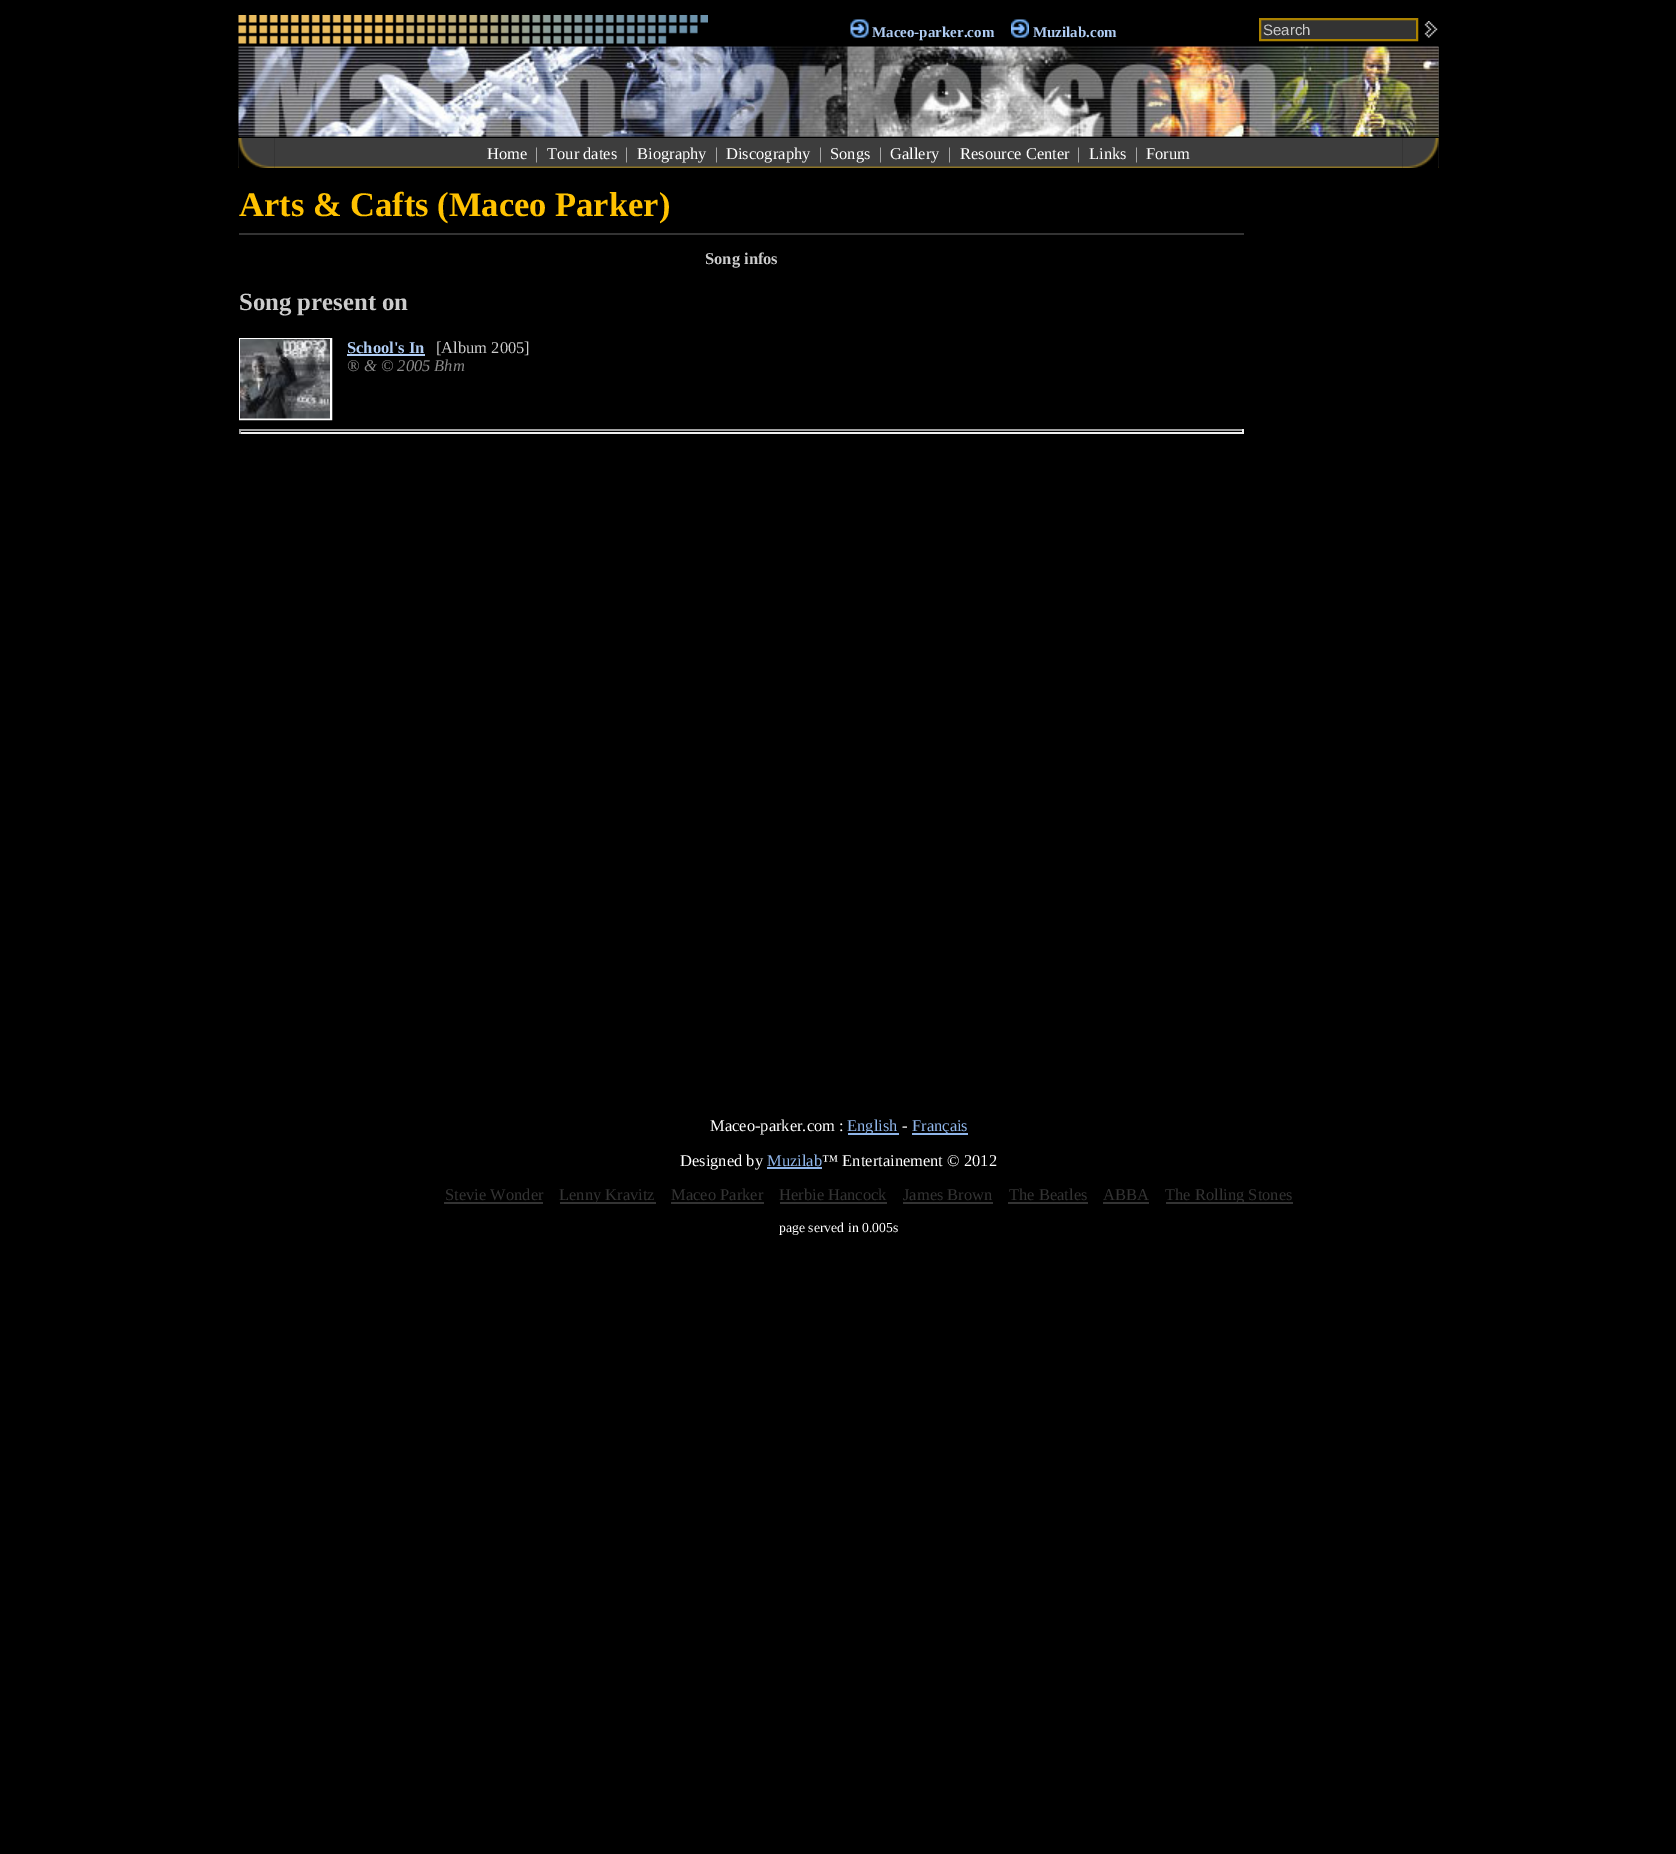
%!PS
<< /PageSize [1676 1854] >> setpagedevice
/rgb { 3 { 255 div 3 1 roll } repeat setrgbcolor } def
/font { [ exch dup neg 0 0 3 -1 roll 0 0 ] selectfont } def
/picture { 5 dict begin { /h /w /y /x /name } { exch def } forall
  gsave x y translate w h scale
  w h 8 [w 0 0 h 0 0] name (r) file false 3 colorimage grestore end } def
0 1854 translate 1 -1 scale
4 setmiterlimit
0 0 0 rgb
0 0 1676 1854 rectfill
(img/1.rgb) 238 15 470 29 picture
(img/2.rgb) 850 19 19 19 picture
(img/3.rgb) 1011 19 18 19 picture
51 51 51 rgb
1260 19 moveto 1417 19 lineto 1417 40 lineto 1260 40 lineto closepath gsave fill grestore
171 130 0 rgb
2 setlinewidth
stroke
(img/4.rgb) 1424 21 14 17 picture
68 68 68 rgb
239 47 1200 90 rectfill
(img/5.rgb) 238 46 1201 91 picture
(img/6.rgb) 238 138 37 30 picture
(img/8.rgb) 274 138 1129 30 picture
(img/7.rgb) 238 138 37 30 picture
(img/9.rgb) 1402 138 37 30 picture
(img/10.rgb) 1402 138 37 30 picture
51 51 51 rgb
239 233 1005 2 rectfill
255 255 255 rgb
240 339 91 80 rectstroke
(img/11.rgb) 240 339 90 80 picture
[
  [347 354 78 2 176 205 244]
  [239 429 1005 2 159 159 159]
  [1242 429 2 5 238 238 238]
  [239 432 1005 2 238 238 238]
  [239 429 2 5 159 159 159]
  [848 1133 51 2 143 181 233]
  [912 1133 56 2 143 181 233]
  [767 1167 55 2 143 181 233]
  [444 1202 99 2 51 51 51]
  [560 1202 96 2 51 51 51]
  [671 1202 93 2 51 51 51]
  [780 1202 107 2 51 51 51]
  [903 1202 90 2 51 51 51]
  [1008 1202 80 2 51 51 51]
  [1103 1202 46 2 51 51 51]
  [1166 1202 127 2 51 51 51]
] { aload pop rgb rectfill } forall
/LiberationSerif-Bold 15 font
176 205 244 rgb
872 37 moveto (Maceo-parker.com) show
1033 37 moveto (Muzilab.com) show
/LiberationSans-Regular 15 font
204 204 204 rgb
1263 35 moveto (Search) show
/LiberationSerif-Regular 16.5 font
255 255 255 rgb
487 159 moveto (Home) show
204 204 204 rgb
535 159 moveto (|) show
255 255 255 rgb
547 159 moveto (Tour dates) show
204 204 204 rgb
625 159 moveto (|) show
255 255 255 rgb
637 159 moveto (Biography) show
204 204 204 rgb
715 159 moveto (|) show
255 255 255 rgb
726 159 moveto (Discography) show
204 204 204 rgb
819 159 moveto (|) show
255 255 255 rgb
830 159 moveto (Songs) show
204 204 204 rgb
879 159 moveto (|) show
255 255 255 rgb
890 159 moveto (Gallery) show
204 204 204 rgb
948 159 moveto (|) show
255 255 255 rgb
960 159 moveto (Resource Center) show
204 204 204 rgb
1077 159 moveto (|) show
255 255 255 rgb
1089 159 moveto (Links) show
204 204 204 rgb
1135 159 moveto (|) show
255 255 255 rgb
1146 159 moveto (Forum) show
/LiberationSerif-Bold 34.5 font
255 194 0 rgb
239 216 moveto (Arts & Cafts \(Maceo Parker\)) show
/LiberationSerif-Bold 16.5 font
204 204 204 rgb
705 264 moveto (Song infos) show
/LiberationSerif-Bold 24.75 font
239 310 moveto (Song present on) show
/LiberationSerif-Bold 16.5 font
176 205 244 rgb
347 353 moveto (School's In) show
/LiberationSerif-Regular 16.5 font
204 204 204 rgb
436 353 moveto ([Album 2005]) show
/LiberationSerif-Italic 16.5 font
136 136 136 rgb
347 371 moveto (® & © 2005 Bhm) show
/LiberationSerif-Regular 16.5 font
255 255 255 rgb
710 1131 moveto (Maceo-parker.com :) show
143 181 233 rgb
847 1131 moveto (English) show
255 255 255 rgb
902 1131 moveto (-) show
143 181 233 rgb
912 1131 moveto (Français) show
255 255 255 rgb
680 1166 moveto (Designed by) show
143 181 233 rgb
767 1166 moveto (Muzilab) show
255 255 255 rgb
822 1166 moveto (™ Entertainement © 2012) show
51 51 51 rgb
[
  [(Stevie Wonder) 445 1200]
  [(Lenny Kravitz) 559 1200]
  [(Maceo Parker) 671 1200]
  [(Herbie Hancock) 779 1200]
  [(James Brown) 903 1200]
  [(The Beatles) 1009 1200]
  [(ABBA) 1103 1200]
  [(The Rolling Stones) 1165 1200]
] { aload pop moveto show } forall
/LiberationSerif-Regular 13.75 font
255 255 255 rgb
779 1232 moveto (page served in 0.005s) show
showpage
